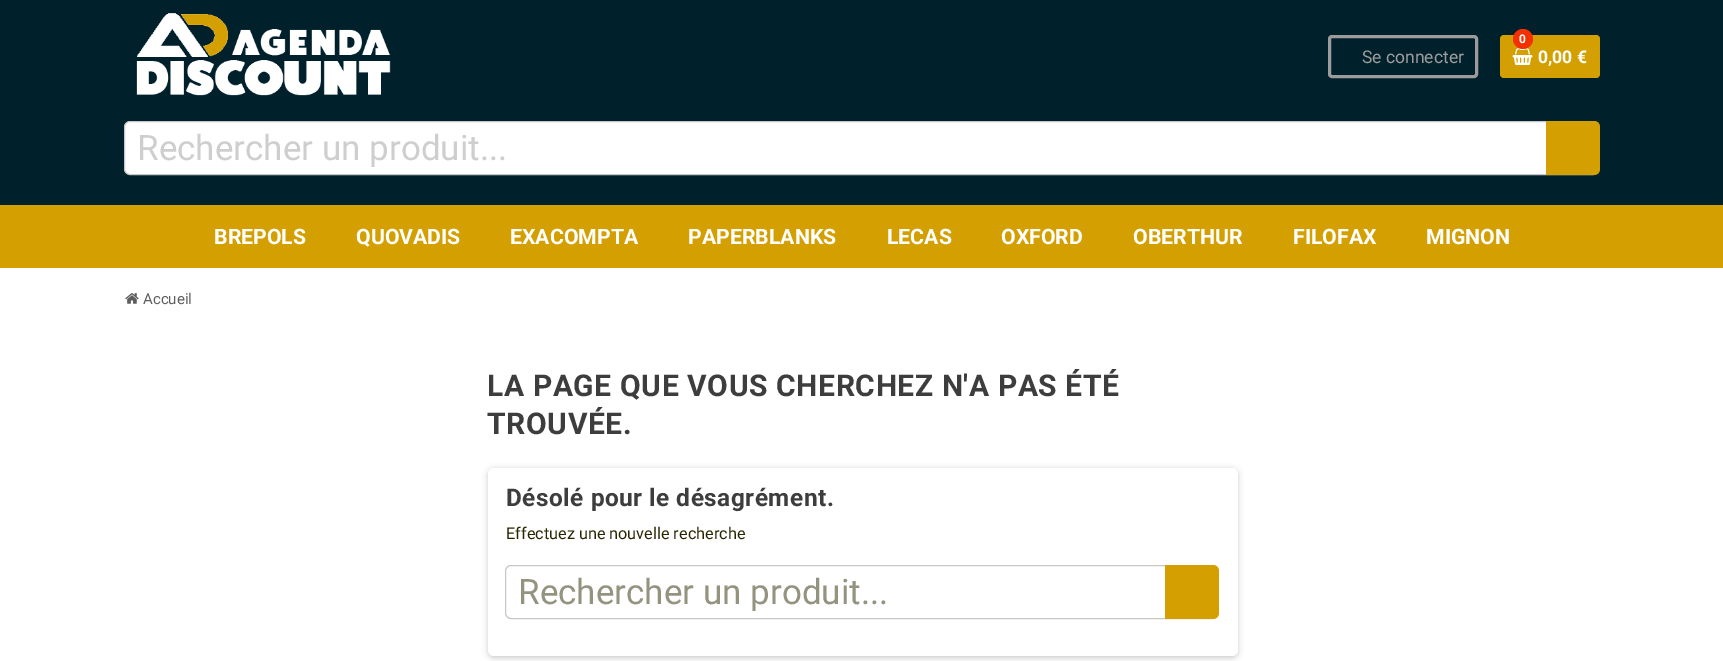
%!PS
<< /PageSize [1723 661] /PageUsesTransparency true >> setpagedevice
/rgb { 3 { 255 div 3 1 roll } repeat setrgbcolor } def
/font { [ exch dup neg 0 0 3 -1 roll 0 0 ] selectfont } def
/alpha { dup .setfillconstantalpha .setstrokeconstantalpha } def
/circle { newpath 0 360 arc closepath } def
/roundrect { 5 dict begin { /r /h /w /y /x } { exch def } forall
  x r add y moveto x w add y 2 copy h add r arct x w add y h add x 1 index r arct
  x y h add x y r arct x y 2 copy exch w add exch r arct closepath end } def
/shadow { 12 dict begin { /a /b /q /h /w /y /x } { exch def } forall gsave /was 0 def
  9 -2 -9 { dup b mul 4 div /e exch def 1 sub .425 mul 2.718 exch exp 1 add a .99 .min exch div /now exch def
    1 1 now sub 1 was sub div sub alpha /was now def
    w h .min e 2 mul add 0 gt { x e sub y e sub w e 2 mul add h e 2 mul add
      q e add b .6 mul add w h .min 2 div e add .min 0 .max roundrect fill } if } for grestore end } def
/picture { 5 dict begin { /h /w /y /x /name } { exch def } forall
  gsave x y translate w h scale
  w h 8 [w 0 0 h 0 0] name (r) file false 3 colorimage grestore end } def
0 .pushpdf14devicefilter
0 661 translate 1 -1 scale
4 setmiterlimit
255 255 255 rgb
0 0 1723 661 rectfill
0 32 44 rgb
0 0 1723 205 rectfill
(img/1.rgb) 136 13 255 83 picture
156 156 156 rgb
3 setlinewidth
1329.5 36.5 147 40 2.5 roundrect stroke
212 159 0 rgb
1500 35 100 43 4 roundrect fill
(img/2.rgb) 1512 48 21 17 picture
243 48 0 rgb
1523 39 10 circle fill
255 255 255 rgb
124.5 121.5 1474 53 5.5 roundrect gsave fill grestore
199 199 199 rgb
1 setlinewidth
stroke
212 159 0 rgb
1546 121 moveto 1594 121 lineto 1597.5 121 1600 123.5 1600 127 curveto 1600 169 lineto 1600 172.5 1597.5 175 1594 175 curveto 1546 175 lineto closepath fill
0 205 1723 63 rectfill
(img/3.rgb) 125 293 14 11 picture
0 0 0 rgb
488 469 750 189 6 3 0.2 shadow
255 255 255 rgb
488 468 750 188 6 roundrect fill
199 199 199 rgb
505.5 565.5 712 53 5.5 roundrect stroke
212 159 0 rgb
1165 565 moveto 1213 565 lineto 1216.5 565 1219 567.5 1219 571 curveto 1219 613 lineto 1219 616.5 1216.5 619 1213 619 curveto 1165 619 lineto closepath fill
/Roboto-Regular 17.5 font
156 156 156 rgb
1362 63 moveto (Se connecter) show
/Roboto-Bold 12 font
255 255 255 rgb
1519 43 moveto (0) show
/Roboto-Bold 17.5 font
1538 63 moveto (0,00 €) show
/Roboto-Regular 35 font
206 206 206 rgb
137 160 moveto (Rechercher un produit...) show
/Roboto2-Bold 21.25 font
255 255 255 rgb
[
  [(BREPOLS) 214 244]
  [(QUOVADIS) 356 244]
  [(EXACOMPTA) 510 244]
  [(PAPERBLANKS) 688 244]
  [(LECAS) 887 244]
  [(OXFORD) 1001 244]
  [(OBERTHUR) 1133 244]
  [(FILOFAX) 1293 244]
  [(MIGNON) 1426 244]
] { aload pop moveto show } forall
/Roboto-Regular 15 font
93 93 93 rgb
143 304 moveto (Accueil) show
/Roboto2-Bold 30 font
61 61 61 rgb
487 396 moveto 0.6 0 (LA PAGE QUE VOUS CHERCHEZ N'A PAS ÉTÉ) ashow
487 434 moveto 0.6 0 (TROUVÉE.) ashow
/Roboto2-Bold 24.4 font
506 506 moveto 0.5 0 (Désolé pour le désagrément.) ashow
/Roboto-Regular 16.25 font
40 38 0 rgb
506 539 moveto (Effectuez une nouvelle recherche) show
/Roboto-Regular 35 font
148 147 128 rgb
518 604 moveto (Rechercher un produit...) show
.poppdf14devicefilter showpage
